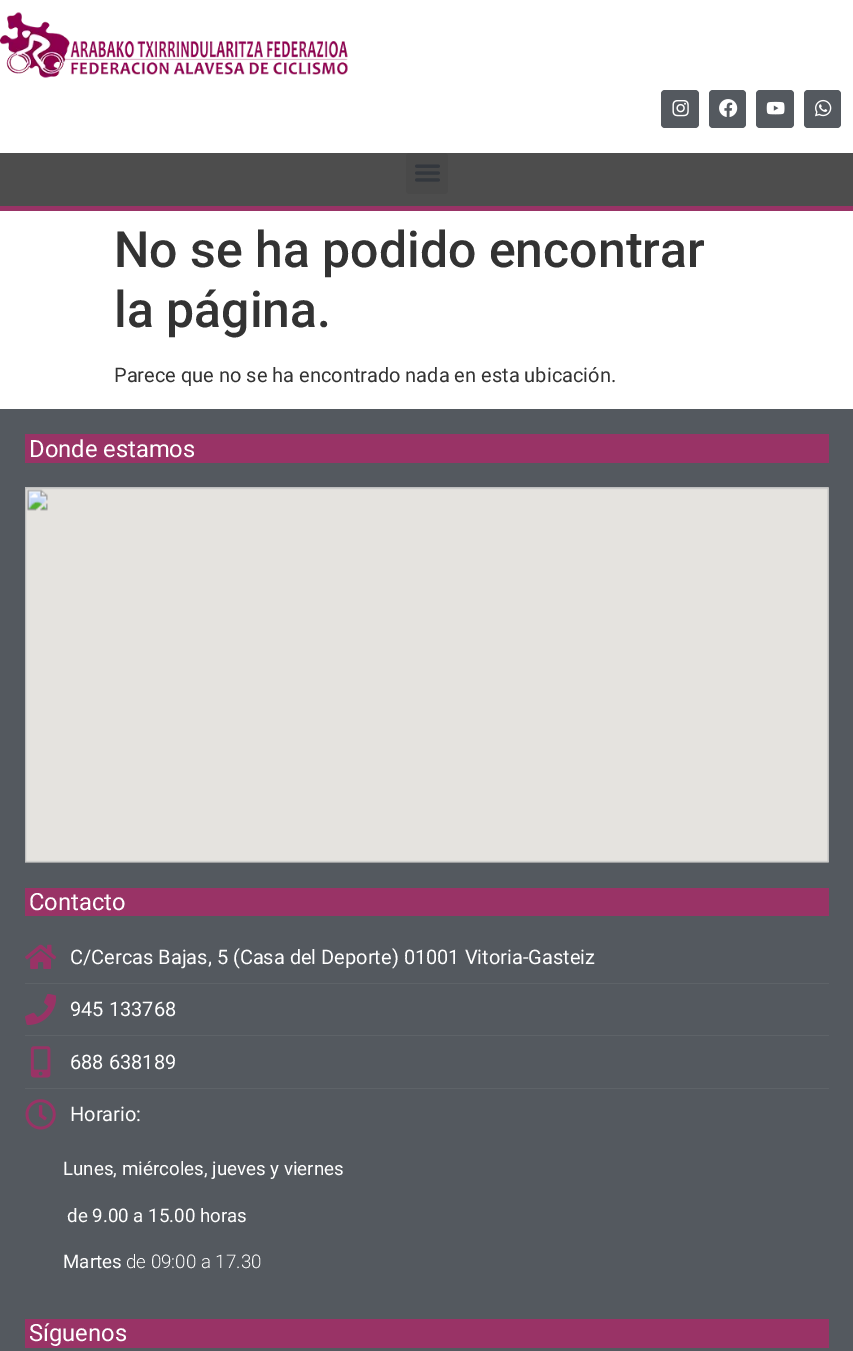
%!PS
<< /PageSize [853 1351] >> setpagedevice
/rgb { 3 { 255 div 3 1 roll } repeat setrgbcolor } def
/font { [ exch dup neg 0 0 3 -1 roll 0 0 ] selectfont } def
/roundrect { 5 dict begin { /r /h /w /y /x } { exch def } forall
  x r add y moveto x w add y 2 copy h add r arct x w add y h add x 1 index r arct
  x y h add x y r arct x y 2 copy exch w add exch r arct closepath end } def
/picture { 5 dict begin { /h /w /y /x /name } { exch def } forall
  gsave x y translate w h scale
  w h 8 [w 0 0 h 0 0] name (r) file false 3 colorimage grestore end } def
0 1351 translate 1 -1 scale
4 setmiterlimit
255 255 255 rgb
0 0 853 1351 rectfill
(img/1.rgb) 0 12 348 66 picture
84 89 95 rgb
661 90 38 38 4 roundrect fill
(img/2.rgb) 672 100 17 17 picture
709 90 37 38 4 roundrect fill
(img/3.rgb) 719 99 19 18 picture
756 90 38 38 4 roundrect fill
(img/4.rgb) 766 101 19 14 picture
804 90 37 38 4 roundrect fill
(img/5.rgb) 815 99 17 18 picture
77 77 77 rgb
0 153 853 53 rectfill
153 51 102 rgb
0 206 853 5 rectfill
73 73 73 rgb
406 153 42 41 4 roundrect fill
(img/6.rgb) 415 164 25 18 picture
84 89 95 rgb
0 409 853 942 rectfill
153 51 102 rgb
25 434 804 29 rectfill
(img/7.rgb) 25 487 804 376 picture
25 888 804 28 rectfill
(img/8.rgb) 25 944 31 25 picture
94 99 104 rgb
25 983 804 1 rectfill
(img/9.rgb) 25 994 31 31 picture
25 1035 804 1 rectfill
(img/10.rgb) 30 1046 21 32 picture
25 1088 804 1 rectfill
(img/11.rgb) 25 1099 31 31 picture
153 51 102 rgb
25 1319 804 29 rectfill
/Roboto-Medium 50 font
51 51 51 rgb
114 267 moveto (No se ha podido encontrar) show
114 327 moveto (la página.) show
/Roboto-Regular 20 font
114 382 moveto (Parece que no se ha encontrado nada en esta ubicación.) show
/Roboto-Regular 23.75 font
255 255 255 rgb
29 457 moveto (Donde estamos) show
29 910 moveto (Contacto) show
/Roboto-Regular 20 font
[
  [(C/Cercas Bajas, 5 \(Casa del Deporte\) 01001 Vitoria-Gasteiz) 70 964]
  [(945 133768) 70 1016]
  [(688 638189) 70 1069]
  [(Horario:) 70 1121]
] { aload pop moveto show } forall
/Roboto-Regular 18.75 font
[
  [(Lunes, miércoles, jueves y viernes) 63 1175]
  [(de 9.00 a 15.00 horas) 67 1222]
  [(Martes) 63 1268]
] { aload pop moveto show } forall
/Roboto-Light 18.75 font
126 1268 moveto (de 09:00 a 17.30) show
/Roboto-Regular 23.75 font
29 1341 moveto (Síguenos) show
showpage
